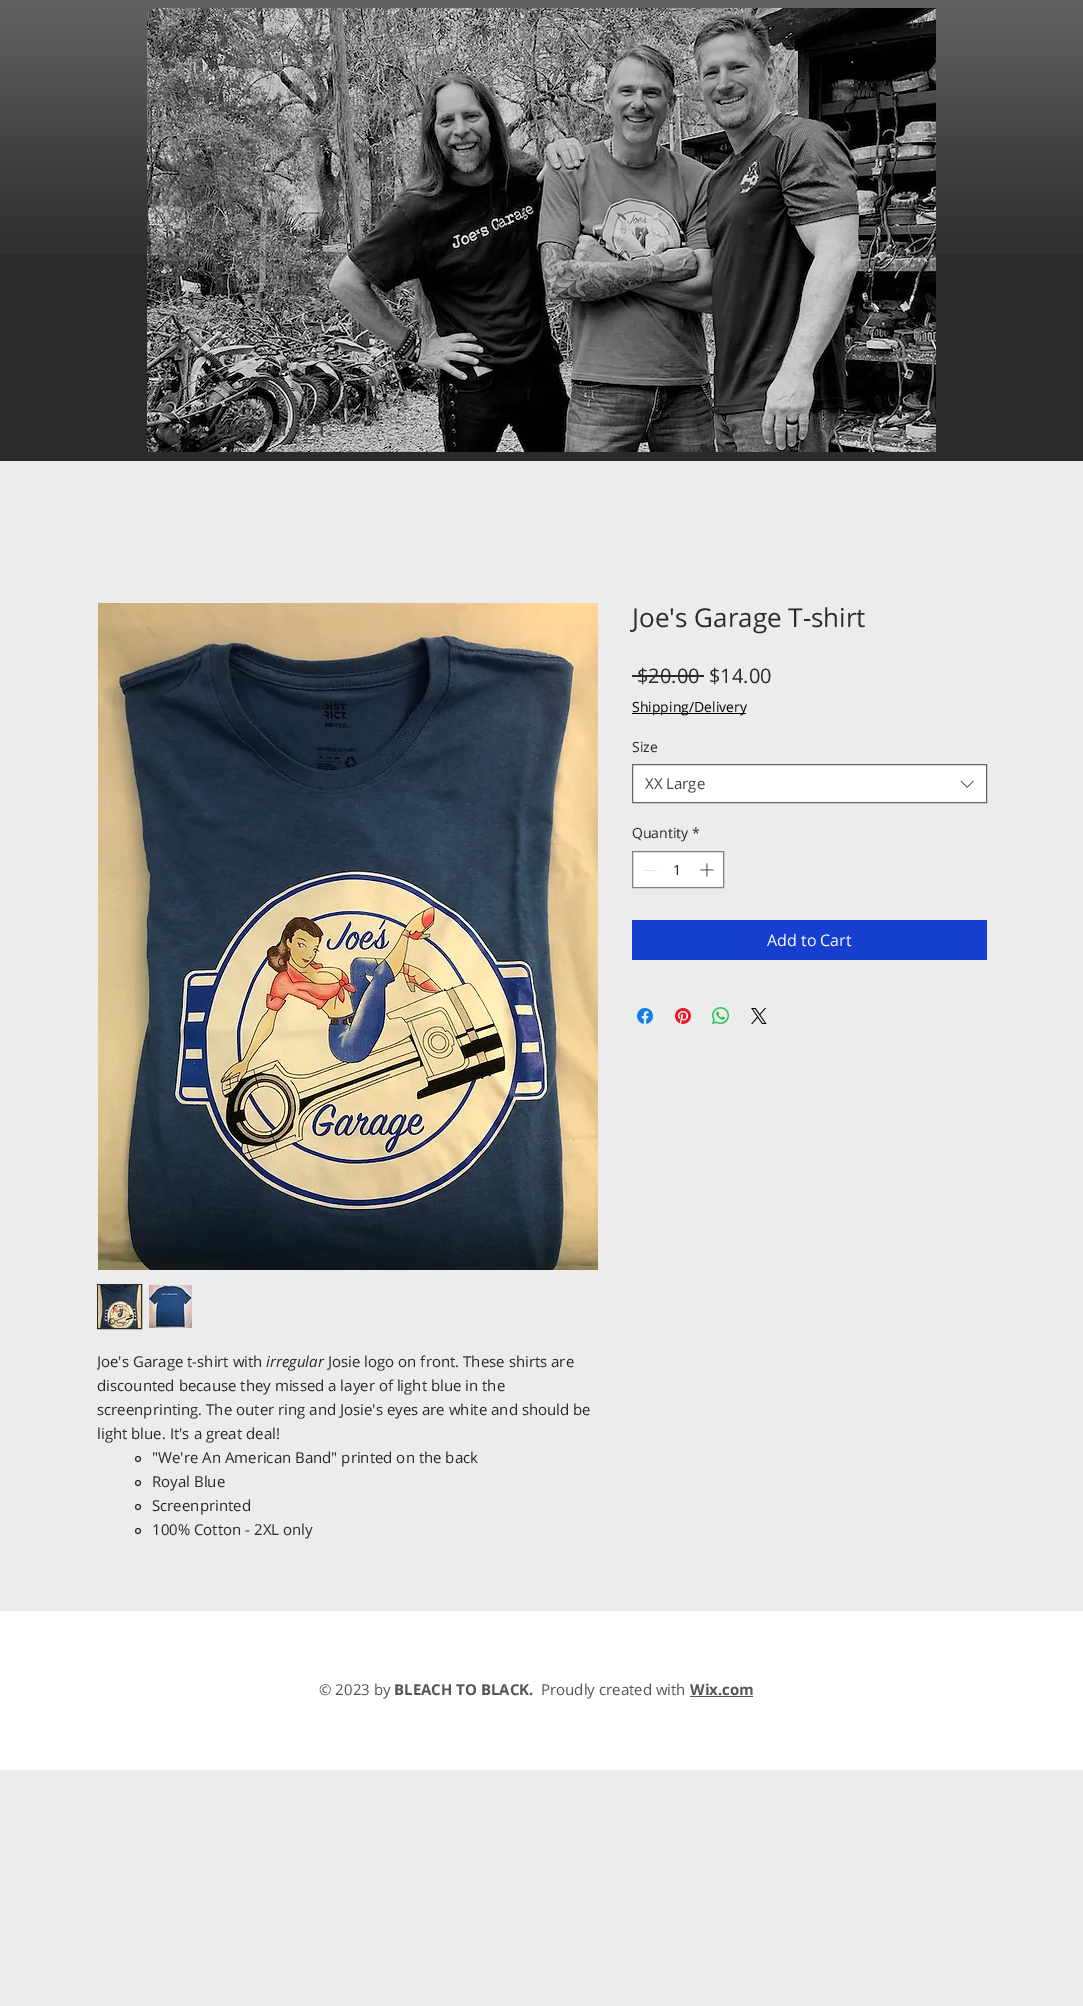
%!PS
<< /PageSize [1083 2006] >> setpagedevice
/rgb { 3 { 255 div 3 1 roll } repeat setrgbcolor } def
/font { [ exch dup neg 0 0 3 -1 roll 0 0 ] selectfont } def
/circle { newpath 0 360 arc closepath } def
/picture { 5 dict begin { /h /w /y /x /name } { exch def } forall
  gsave x y translate w h scale
  w h 8 [w 0 0 h 0 0] name (r) file false 3 colorimage grestore end } def
0 2006 translate 1 -1 scale
4 setmiterlimit
236 236 236 rgb
0 0 1083 2006 rectfill
43 43 43 rgb
0 0 1083 461 rectfill
(img/1.rgb) 0 0 1083 254 picture
(img/2.rgb) 147 8 789 444 picture
632 675 72 2 rectfill
0 0 0 rgb
632 713 114 1 rectfill
255 255 255 rgb
632.5 764.5 moveto 986.5 764.5 lineto 986.5 802.5 lineto 632.5 802.5 lineto closepath gsave fill grestore
102 102 102 rgb
stroke
(img/3.rgb) 960 780 14 8 picture
255 255 255 rgb
632.5 851.5 moveto 723.5 851.5 lineto 723.5 887.5 lineto 632.5 887.5 lineto closepath gsave fill grestore
128 128 128 rgb
stroke
227 227 227 rgb
644 870 13 1 rectfill
(img/4.rgb) 700 863 14 14 picture
23 63 207 rgb
632 920 355 40 rectfill
(img/5.rgb) 637 1008 16 16 picture
(img/6.rgb) 675 1008 16 16 picture
(img/7.rgb) 712 1007 17 17 picture
(img/8.rgb) 751 1008 16 16 picture
(img/9.rgb) 98 603 500 667 picture
43 43 43 rgb
97.5 1284.5 44 44 rectstroke
(img/10.rgb) 98 1285 43 43 picture
(img/11.rgb) 149 1285 43 43 picture
138 1459 2.5 circle stroke
138 1483 2.5 circle stroke
138 1507 2.5 circle stroke
138 1531 2.5 circle stroke
255 255 255 rgb
0 1611 1083 159 rectfill
85 85 85 rgb
690 1696 63 1 rectfill
/LiberationSans-Regular 12 font
74 74 74 rgb
909 28 moveto (1/7) show
/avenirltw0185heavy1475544-Black 17 font
68 68 68 rgb
157 436 moveto (Sticky, Eric, & Mark T.) show
/OpenSans-Regular 26 font
43 43 43 rgb
632 627 moveto (Joe's Garage T-shirt) show
/OpenSans-Regular 20 font
637 683 moveto ($20.00) show
709 683 moveto ($14.00) show
/OpenSans-Regular 14 font
0 0 0 rgb
632 712 moveto (Shipping/Delivery) show
43 43 43 rgb
632 752 moveto (Size) show
/OpenSans-Regular 15 font
68 68 68 rgb
645 789 moveto (XX Large) show
/OpenSans-Regular 14 font
43 43 43 rgb
[
  [(Quantity) 632 838]
  [(*) 692 838]
  [(1) 673 875]
] { aload pop moveto show } forall
/OpenSans-Regular 16 font
255 255 255 rgb
767 946 moveto (Add to Cart) show
gsave
97 1349 500 192 rectclip
/OpenSans-Regular 15 font
43 43 43 rgb
97 1367 moveto (Joe's Garage t-shirt with) show
grestore
/OpenSans-Italic 15 font
43 43 43 rgb
266 1367 moveto (irregular) show
/OpenSans-Regular 15 font
[
  [(Josie logo on front. These shirts are) 328 1367]
  [(discounted because they missed a layer of light blue in the) 97 1391]
  [(screenprinting. The outer ring and Josie's eyes are white and should be) 97 1415]
  [(light blue. It's a great deal!) 97 1439]
  [("We're An American Band" printed on the back) 152 1463]
  [(Royal Blue) 152 1487]
  [(Screenprinted) 152 1511]
  [(100% Cotton - 2XL only) 152 1535]
] { aload pop moveto show } forall
85 85 85 rgb
319 1695 moveto (© 2023 by) show
/OpenSans-Bold 15 font
394 1695 moveto (BLEACH TO BLACK.) show
/OpenSans-Regular 15 font
541 1695 moveto (Proudly created with) show
/OpenSans-Bold 15 font
690 1695 moveto (Wix.com) show
showpage
